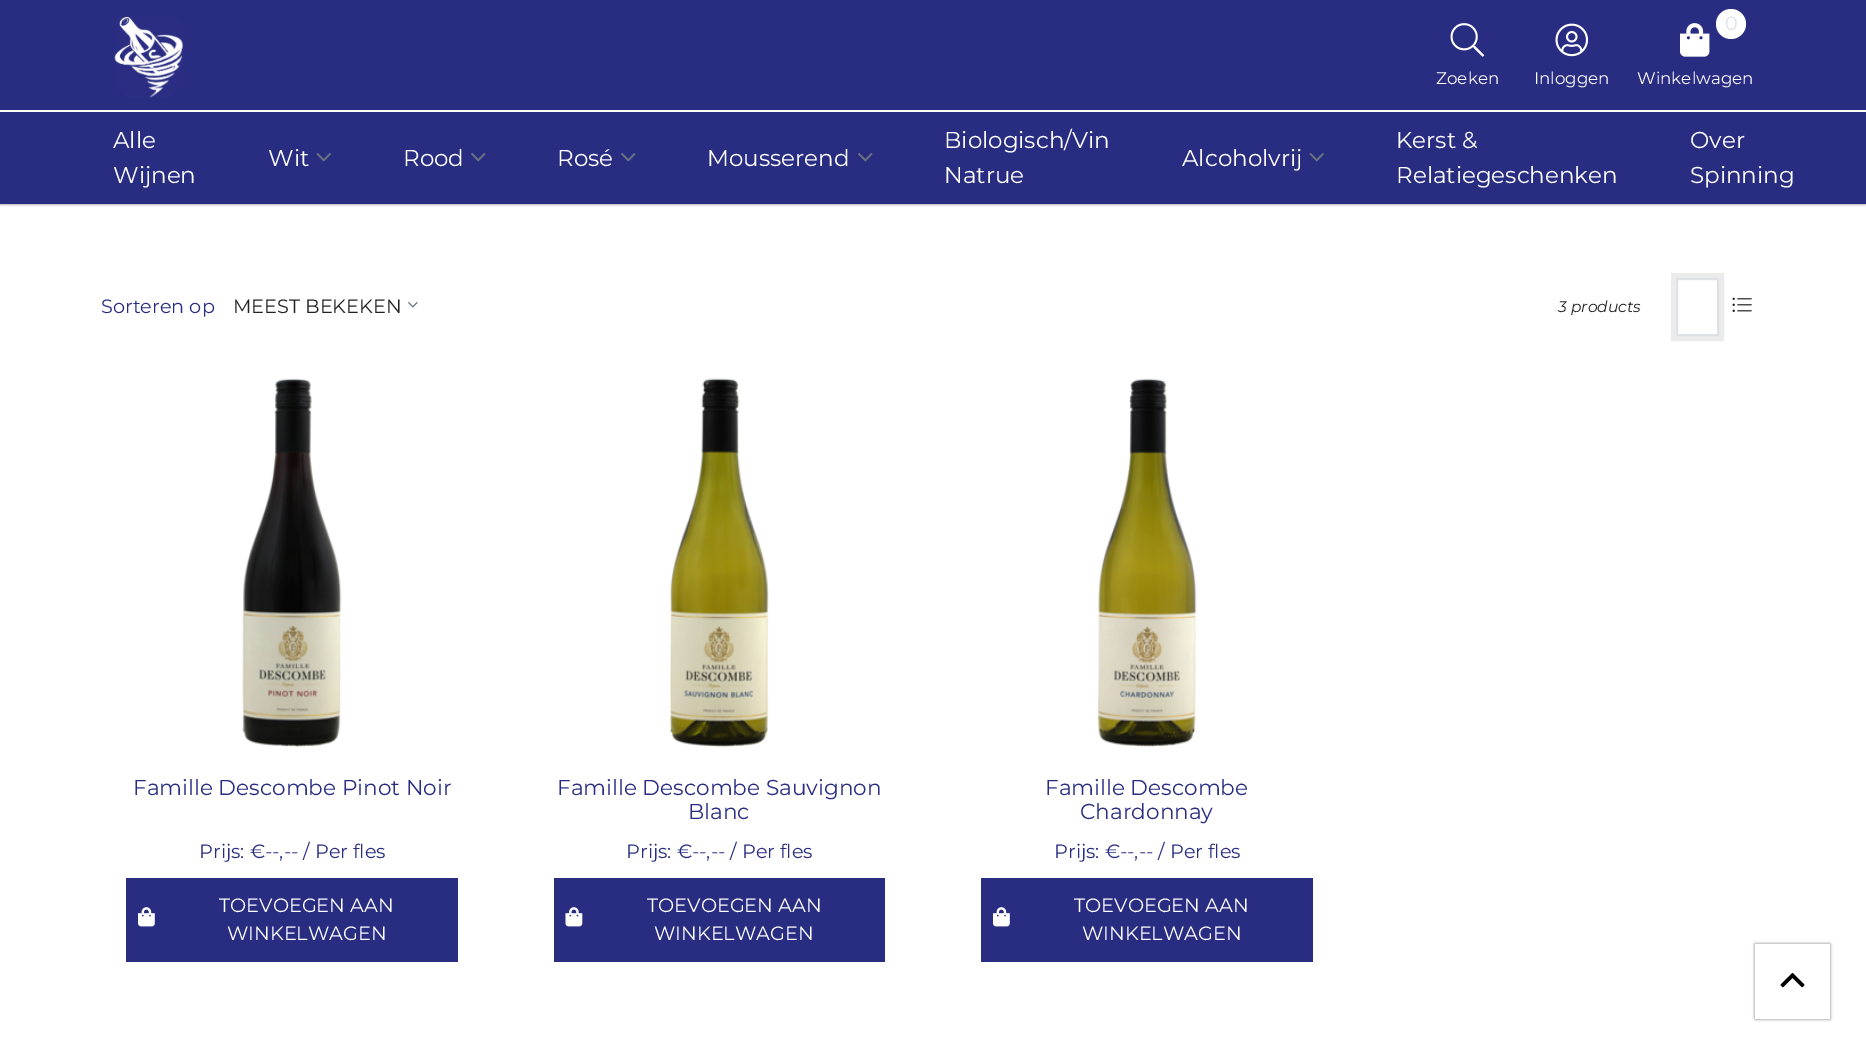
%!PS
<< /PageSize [1866 1054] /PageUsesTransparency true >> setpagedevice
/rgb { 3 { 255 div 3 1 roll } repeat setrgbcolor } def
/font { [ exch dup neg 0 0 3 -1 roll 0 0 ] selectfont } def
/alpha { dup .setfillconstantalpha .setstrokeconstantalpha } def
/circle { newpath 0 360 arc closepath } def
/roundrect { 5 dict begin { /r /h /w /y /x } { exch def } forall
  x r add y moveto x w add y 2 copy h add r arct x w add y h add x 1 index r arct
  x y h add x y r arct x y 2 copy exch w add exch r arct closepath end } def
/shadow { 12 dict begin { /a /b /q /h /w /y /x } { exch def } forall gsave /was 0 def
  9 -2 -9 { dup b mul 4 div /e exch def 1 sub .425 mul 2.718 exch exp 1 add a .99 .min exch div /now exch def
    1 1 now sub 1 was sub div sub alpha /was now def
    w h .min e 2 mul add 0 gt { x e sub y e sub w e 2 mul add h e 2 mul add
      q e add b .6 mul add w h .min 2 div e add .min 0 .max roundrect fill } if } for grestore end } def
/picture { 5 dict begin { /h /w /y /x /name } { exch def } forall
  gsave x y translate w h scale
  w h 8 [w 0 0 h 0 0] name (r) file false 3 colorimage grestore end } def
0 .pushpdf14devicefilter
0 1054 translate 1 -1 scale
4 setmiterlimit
255 255 255 rgb
0 0 1866 1054 rectfill
0 0 0 rgb
0 0 1866 204 0 1.5 0.5 shadow
41 45 130 rgb
0 0 1866 204 rectfill
(img/1.rgb) 114 16 70 82 picture
(img/2.rgb) 1450 23 35 34 picture
(img/3.rgb) 1555 23 34 34 picture
(img/4.rgb) 1680 23 30 34 picture
255 255 255 rgb
1731 24 15 circle fill
0 110 1866 2 rectfill
(img/5.rgb) 316 153 15 9 picture
(img/6.rgb) 471 153 15 9 picture
(img/6.rgb) 621 153 15 9 picture
(img/6.rgb) 858 153 15 9 picture
(img/5.rgb) 1309 153 15 9 picture
(img/7.rgb) 408 302 10 6 picture
235 235 235 rgb
5 setlinewidth
1673.5 275.5 48 63 rectstroke
222 226 230 rgb
2 setlinewidth
1677 279 41 56 rectstroke
(img/8.rgb) 1732 297 20 15 picture
(img/9.rgb) 242 378 100 369 picture
41 45 130 rgb
126 878 332 84 rectfill
(img/10.rgb) 138 907 17 20 picture
(img/11.rgb) 669 378 100 369 picture
554 878 331 84 rectfill
(img/12.rgb) 565 907 18 20 picture
(img/13.rgb) 1097 378 100 369 picture
981 878 332 84 rectfill
(img/10.rgb) 993 907 17 20 picture
0 0 0 rgb
1755 944 75 75 0 1.5 0.5 shadow
255 255 255 rgb
1755 944 75 75 rectfill
(img/14.rgb) 1780 973 25 15 picture
/Montserrat-Regular 16.75 font
1436 84 moveto (Zoeken) show
1534 84 moveto (Inloggen) show
/Montserrat-Regular 19.25 font
222 226 230 rgb
1725 30 moveto (0) show
/Montserrat-Regular 16.75 font
255 255 255 rgb
1637 84 moveto (Winkelwagen) show
/Montserrat-Regular 23 font
[
  [(Alle) 113 148]
  [(Wijnen) 113 183]
  [(Wit) 268 166]
  [(Rood) 403 166]
  [(Rosé) 557 166]
  [(Mousserend) 707 166]
  [(Biologisch/Vin) 944 148]
  [(Natrue) 944 183]
  [(Alcoholvrij) 1182 166]
  [(Kerst &) 1396 148]
  [(Relatiegeschenken) 1396 183]
  [(Over) 1690 148]
  [(Spinning) 1690 183]
] { aload pop moveto show } forall
/Montserrat-Regular 19.25 font
41 45 130 rgb
101 313 moveto (Sorteren op) show
34 34 34 rgb
233 313 moveto (MEEST BEKEKEN) show
/Montserrat-Italic 15.5 font
1558 312 moveto (3 products) show
/Montserrat-Regular 21.6 font
41 45 130 rgb
133 795 moveto (Famille Descombe Pinot Noir) show
/Montserrat-Regular 19.25 font
199 858 moveto (Prijs: €--,-- / Per fles) show
255 255 255 rgb
219 912 moveto (TOEVOEGEN AAN) show
227 940 moveto (WINKELWAGEN) show
/Montserrat-Regular 21.6 font
41 45 130 rgb
557 795 moveto (Famille Descombe Sauvignon) show
688 819 moveto (Blanc) show
/Montserrat-Regular 19.25 font
626 858 moveto (Prijs: €--,-- / Per fles) show
255 255 255 rgb
647 912 moveto (TOEVOEGEN AAN) show
654 940 moveto (WINKELWAGEN) show
/Montserrat-Regular 21.6 font
41 45 130 rgb
1045 795 moveto (Famille Descombe) show
1080 819 moveto (Chardonnay) show
/Montserrat-Regular 19.25 font
1054 858 moveto (Prijs: €--,-- / Per fles) show
255 255 255 rgb
1074 912 moveto (TOEVOEGEN AAN) show
1082 940 moveto (WINKELWAGEN) show
.poppdf14devicefilter showpage
